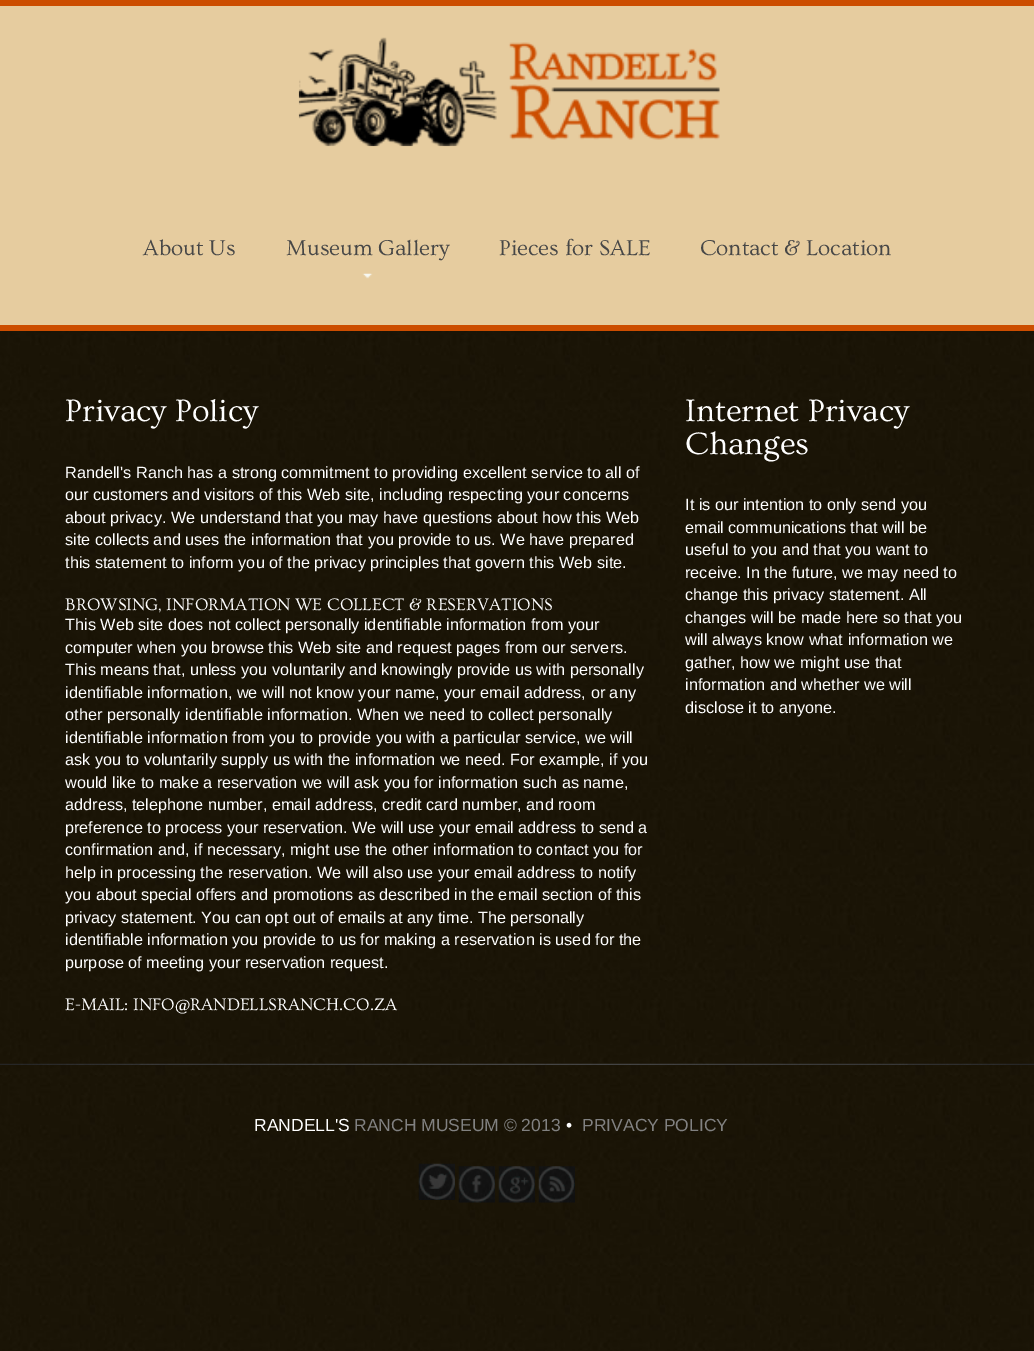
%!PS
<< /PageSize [1034 1351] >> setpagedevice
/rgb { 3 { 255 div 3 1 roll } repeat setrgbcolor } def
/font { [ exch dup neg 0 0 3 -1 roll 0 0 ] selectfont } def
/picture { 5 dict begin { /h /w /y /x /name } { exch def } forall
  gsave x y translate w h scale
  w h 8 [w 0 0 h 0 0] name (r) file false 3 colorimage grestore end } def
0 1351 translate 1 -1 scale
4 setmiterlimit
255 255 255 rgb
0 0 1034 1351 rectfill
(img/1.rgb) 0 331 1034 1020 picture
[
  [0 6 1034 319 230 204 159]
  [0 0 1034 6 204 77 0]
  [0 325 1034 6 204 77 0]
] { aload pop rgb rectfill } forall
(img/2.rgb) 298 37 422 110 picture
(img/3.rgb) 362 273 11 6 picture
(img/4.rgb) 0 1063 1034 2 picture
(img/5.rgb) 418 1163 37 37 picture
(img/6.rgb) 458 1166 37 37 picture
(img/7.rgb) 498 1166 37 37 picture
(img/8.rgb) 538 1166 37 37 picture
/Ovo-Regular 22.5 font
71 71 71 rgb
[
  [(About Us) 143 255]
  [(Museum Gallery) 286 255]
  [(Pieces for SALE) 499 255]
  [(Contact & Location) 700 255]
] { aload pop moveto show } forall
/Ovo-Regular 32.5 font
255 255 255 rgb
65 421 moveto (Privacy Policy) show
/LiberationSans-Regular 16.25 font
[
  [(Randell's Ranch has a strong commitment to providing excellent service to all of) 65 478]
  [(our customers and visitors of this Web site, including respecting your concerns) 65 500]
  [(about privacy. We understand that you may have questions about how this Web) 65 523]
  [(site collects and uses the information that you provide to us. We have prepared) 65 545]
  [(this statement to inform you of the privacy principles that govern this Web site.) 65 568]
] { aload pop moveto show } forall
/Ovo-Regular 17.5 font
65 610 moveto (BROWSING, INFORMATION WE COLLECT & RESERVATIONS) show
/LiberationSans-Regular 16.25 font
[
  [(This Web site does not collect personally identifiable information from your) 65 630]
  [(computer when you browse this Web site and request pages from our servers.) 65 653]
  [(This means that, unless you voluntarily and knowingly provide us with personally) 65 675]
  [(identifiable information, we will not know your name, your email address, or any) 65 698]
  [(other personally identifiable information. When we need to collect personally) 65 720]
  [(identifiable information from you to provide you with a particular service, we will) 65 743]
  [(ask you to voluntarily supply us with the information we need. For example, if you) 65 765]
  [(would like to make a reservation we will ask you for information such as name,) 65 788]
  [(address, telephone number, email address, credit card number, and room) 65 810]
  [(preference to process your reservation. We will use your email address to send a) 65 833]
  [(confirmation and, if necessary, might use the other information to contact you for) 65 855]
  [(help in processing the reservation. We will also use your email address to notify) 65 878]
  [(you about special offers and promotions as described in the email section of this) 65 900]
  [(privacy statement. You can opt out of emails at any time. The personally) 65 923]
  [(identifiable information you provide to us for making a reservation is used for the) 65 945]
  [(purpose of meeting your reservation request.) 65 968]
] { aload pop moveto show } forall
/Ovo-Regular 17.5 font
65 1010 moveto (E-MAIL: INFO@RANDELLSRANCH.CO.ZA) show
/Ovo-Regular 32.5 font
685 421 moveto (Internet Privacy) show
685 454 moveto (Changes) show
/LiberationSans-Regular 16.25 font
[
  [(It is our intention to only send you) 685 510]
  [(email communications that will be) 685 533]
  [(useful to you and that you want to) 685 555]
  [(receive. In the future, we may need to) 685 578]
  [(change this privacy statement. All) 685 600]
  [(changes will be made here so that you) 685 623]
  [(will always know what information we) 685 645]
  [(gather, how we might use that) 685 668]
  [(information and whether we will) 685 690]
  [(disclose it to anyone.) 685 713]
] { aload pop moveto show } forall
/LiberationSans-Regular 17.5 font
254 1131 moveto (RANDELL'S) show
129 129 129 rgb
354 1131 moveto (RANCH MUSEUM © 2013) show
255 255 255 rgb
566 1131 moveto (•) show
129 129 129 rgb
582 1131 moveto (PRIVACY POLICY) show
showpage
